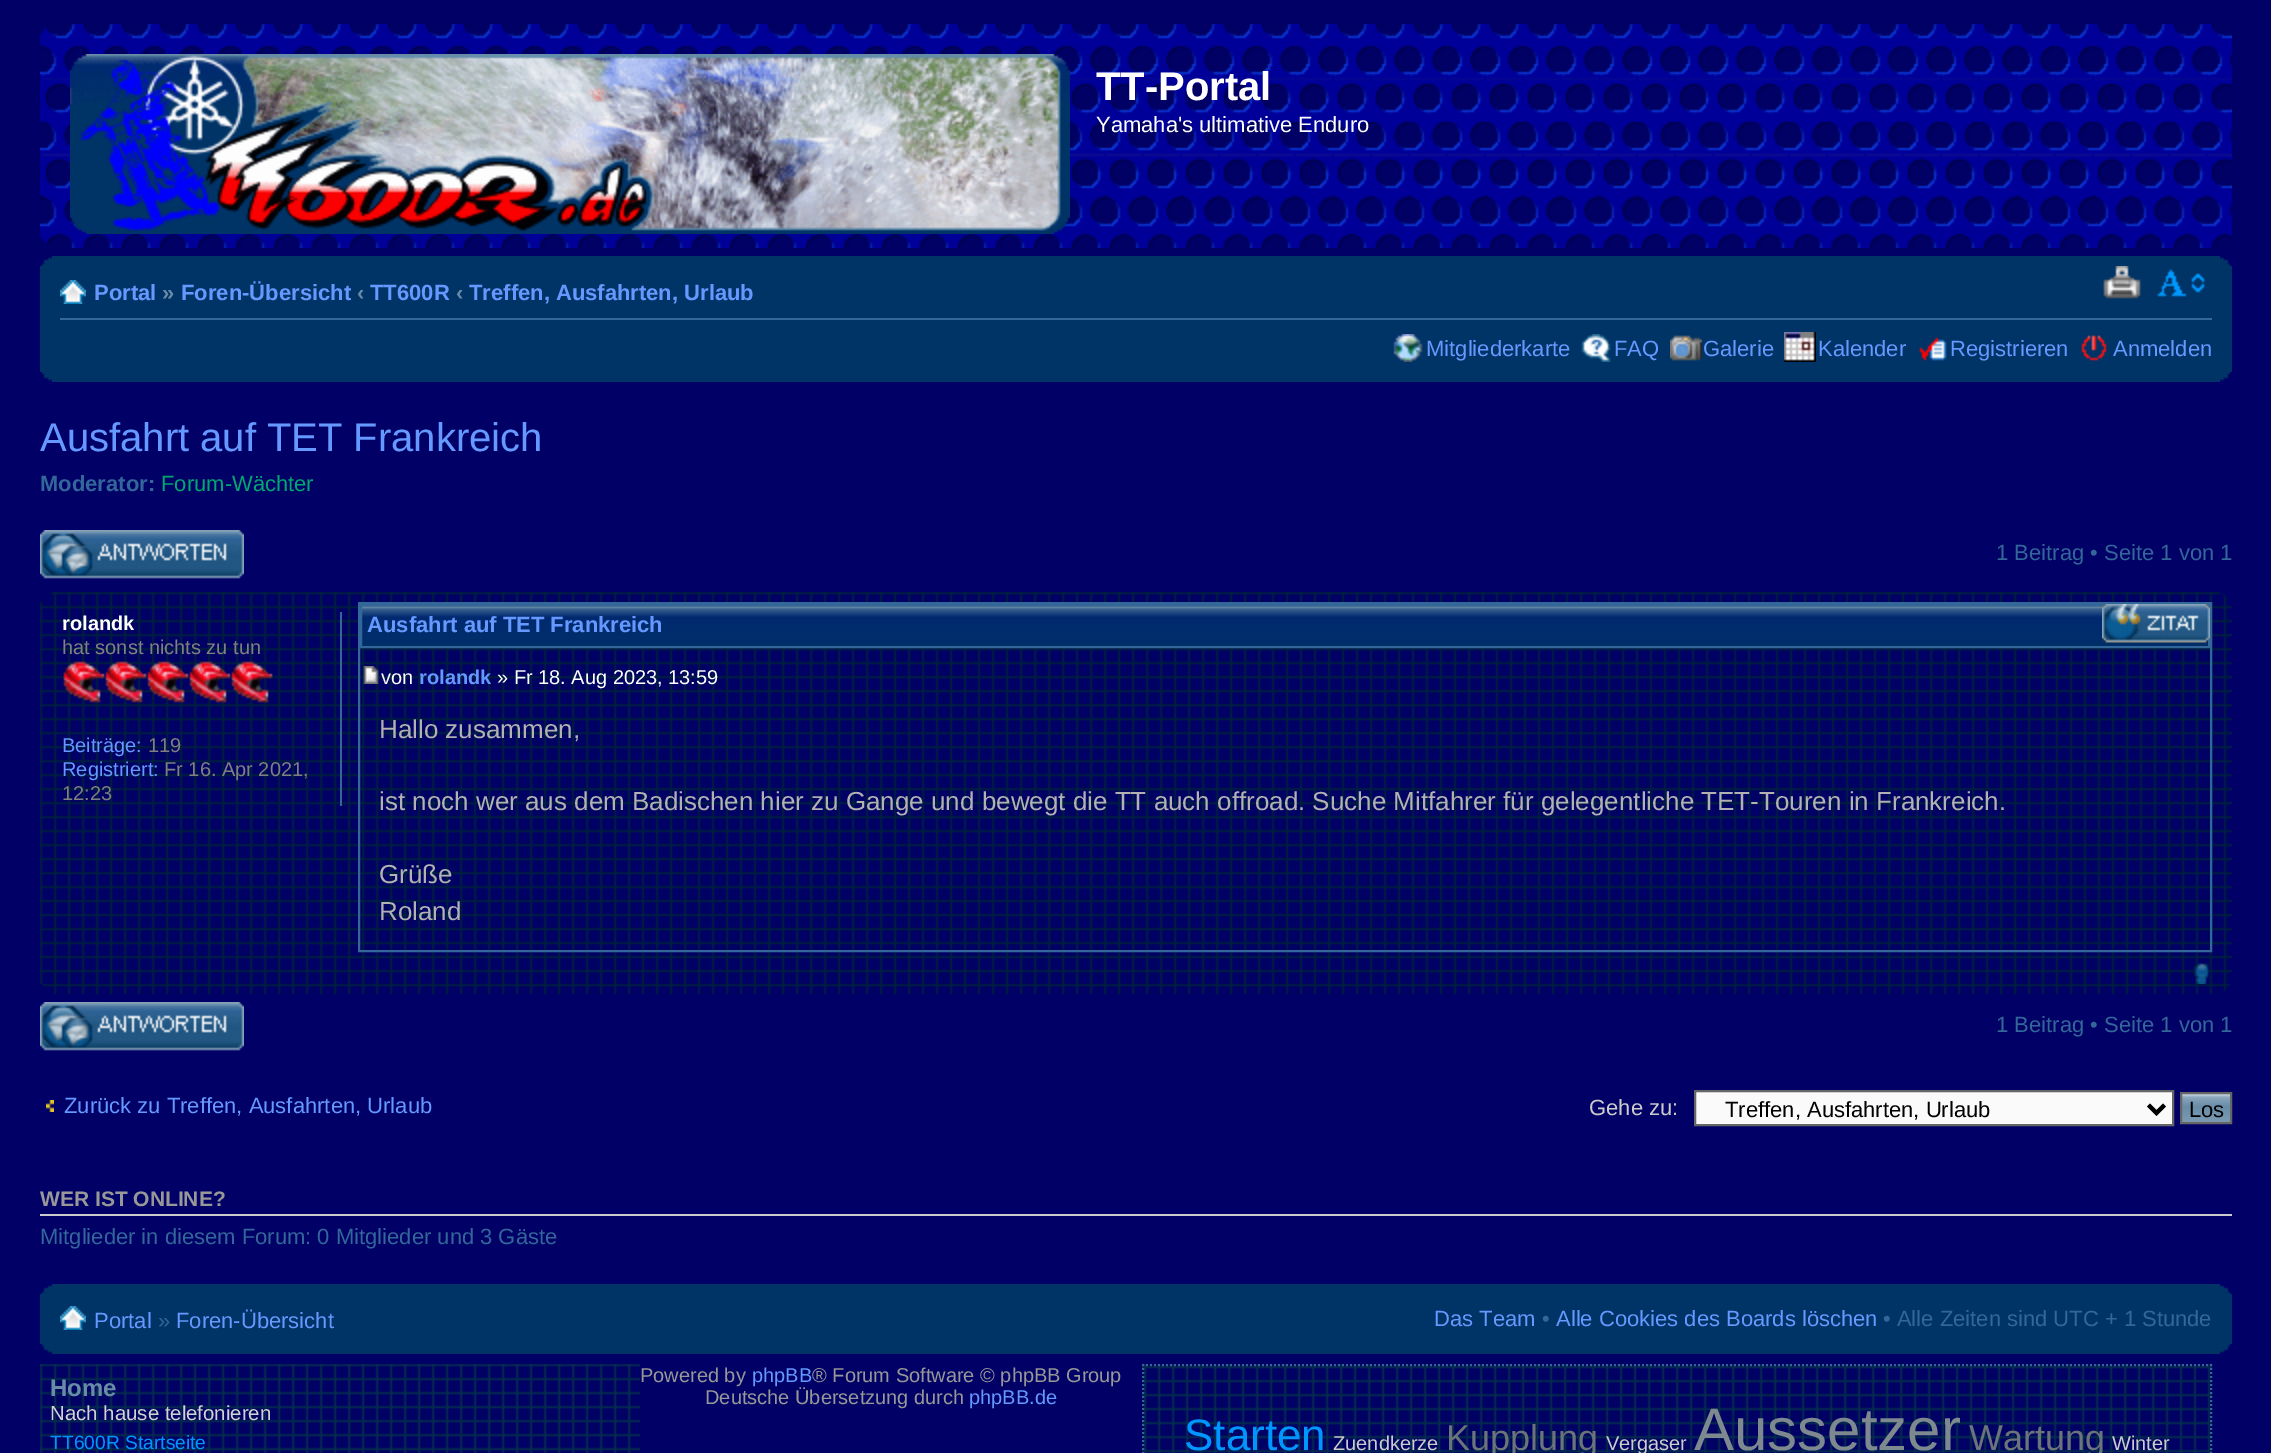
%!PS
<< /PageSize [2271 1453] >> setpagedevice
/rgb { 3 { 255 div 3 1 roll } repeat setrgbcolor } def
/font { [ exch dup neg 0 0 3 -1 roll 0 0 ] selectfont } def
/picture { 5 dict begin { /h /w /y /x /name } { exch def } forall
  gsave x y translate w h scale
  w h 8 [w 0 0 h 0 0] name (r) file false 3 colorimage grestore end } def
0 1453 translate 1 -1 scale
4 setmiterlimit
0 0 102 rgb
0 0 2271 1453 rectfill
(img/1.rgb) 40 24 2192 224 picture
(img/2.rgb) 40 24 9 10 picture
2231 33 1 1 rectfill
(img/3.rgb) 70 54 1000 180 picture
(img/4.rgb) 40 238 9 10 picture
2231 238 1 1 rectfill
0 51 102 rgb
40 256 2192 126 rectfill
(img/5.rgb) 40 256 12 10 picture
(img/6.rgb) 2220 256 12 10 picture
51 102 153 rgb
60 318 2152 2 rectfill
(img/7.rgb) 60 280 26 24 picture
(img/8.rgb) 2103 266 38 33 picture
(img/9.rgb) 2157 269 48 28 picture
(img/10.rgb) 1393 334 30 28 picture
(img/11.rgb) 1581 334 30 28 picture
(img/12.rgb) 1670 335 32 26 picture
(img/13.rgb) 1784 332 32 30 picture
(img/14.rgb) 1919 337 28 24 picture
(img/15.rgb) 2081 335 26 26 picture
(img/16.rgb) 40 372 12 10 picture
(img/17.rgb) 2220 372 12 10 picture
(img/18.rgb) 40 530 204 49 picture
(img/19.rgb) 40 592 2192 402 picture
(img/20.rgb) 40 592 12 10 picture
(img/21.rgb) 2220 592 12 5 picture
340 612 2 194 rectfill
(img/22.rgb) 63 661 210 42 picture
2 setlinewidth
359 603 1852 348 rectstroke
(img/23.rgb) 362 606 1846 40 picture
361 605 1848 42 rectstroke
(img/24.rgb) 2102 604 108 39 picture
(img/25.rgb) 2102 604 108 39 picture
(img/26.rgb) 363 666 16 18 picture
(img/27.rgb) 2193 963 16 21 picture
(img/28.rgb) 40 984 4 10 picture
(img/29.rgb) 2223 984 9 10 picture
(img/18.rgb) 40 1002 204 49 picture
(img/30.rgb) 46 1100 8 12 picture
250 250 250 rgb
1695 1091 moveto 2173 1091 lineto 2173 1125 lineto 1695 1125 lineto closepath gsave fill grestore
102 102 102 rgb
stroke
0 0 0 rgb
4 setlinewidth
2148.5 1105 moveto 2156.5 1113 lineto 2164.5 1105 lineto stroke
(img/31.rgb) 2182 1094 48 28 picture
102 102 102 rgb
2 setlinewidth
2181 1093 50 30 rectstroke
204 204 204 rgb
40 1214 2192 2 rectfill
0 51 102 rgb
40 1284 2192 70 rectfill
(img/5.rgb) 40 1284 12 10 picture
(img/6.rgb) 2220 1284 12 10 picture
(img/7.rgb) 60 1306 26 24 picture
(img/16.rgb) 40 1344 12 10 picture
(img/17.rgb) 2220 1344 12 10 picture
(img/32.rgb) 40 1364 600 89 picture
(img/33.rgb) 1142 1364 1070 89 picture
51 102 153 rgb
[2 2] 0 setdash
1142 1365 moveto 2212 1365 lineto stroke
2211 1364 moveto 2211 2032 lineto stroke
1143 1364 moveto 1143 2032 lineto stroke
/LiberationSans-Bold 40 font
255 255 255 rgb
1096 100 moveto (TT-Portal) show
/LiberationSans-Regular 22 font
1096 132 moveto (Yamaha's ultimative Enduro) show
/LiberationSans-Bold 22 font
102 153 255 rgb
94 300 moveto (Portal) show
104 140 168 rgb
162 300 moveto (») show
102 153 255 rgb
181 300 moveto (Foren-Übersicht) show
104 140 168 rgb
357 300 moveto (‹) show
102 153 255 rgb
370 300 moveto (TT600R) show
104 140 168 rgb
456 300 moveto (‹) show
102 153 255 rgb
469 300 moveto (Treffen, Ausfahrten, Urlaub) show
/LiberationSans-Regular 22 font
[
  [(Mitgliederkarte) 1426 356]
  [(FAQ) 1614 356]
  [(Galerie) 1703 356]
  [(Kalender) 1818 356]
  [(Registrieren) 1950 356]
  [(Anmelden) 2113 356]
] { aload pop moveto show } forall
/LiberationSans-Regular 40 font
40 451 moveto (Ausfahrt auf TET Frankreich) show
/LiberationSans-Bold 22 font
51 102 153 rgb
40 491 moveto (Moderator:) show
/LiberationSans-Regular 22 font
1 167 113 rgb
161 491 moveto (Forum-Wächter) show
51 102 153 rgb
1996 560 moveto (1 Beitrag • Seite 1 von 1) show
/LiberationSans-Bold 20 font
255 255 255 rgb
62 630 moveto (rolandk) show
/LiberationSans-Regular 20 font
128 128 128 rgb
62 654 moveto (hat sonst nichts zu tun) show
102 153 255 rgb
62 752 moveto (Beiträge:) show
128 128 128 rgb
148 752 moveto (119) show
102 153 255 rgb
62 776 moveto (Registriert:) show
128 128 128 rgb
164 776 moveto (Fr 16. Apr 2021,) show
62 800 moveto (12:23) show
/LiberationSans-Bold 22 font
102 153 255 rgb
367 632 moveto (Ausfahrt auf TET Frankreich) show
/LiberationSans-Regular 20 font
255 255 255 rgb
381 684 moveto (von) show
/LiberationSans-Bold 20 font
102 153 255 rgb
419 684 moveto (rolandk) show
/LiberationSans-Regular 20 font
255 255 255 rgb
497 684 moveto (» Fr 18. Aug 2023, 13:59) show
/LiberationSans-Regular 26 font
178 178 178 rgb
[
  [(Hallo zusammen,) 379 738]
  [(ist noch wer aus dem Badischen hier zu Gange und bewegt die TT auch offroad. Suche Mitfahrer für gelegentliche TET-Touren in Frankreich.) 379 810]
  [(Grüße) 379 883]
  [(Roland) 379 920]
] { aload pop moveto show } forall
/LiberationSans-Regular 22 font
51 102 153 rgb
1996 1032 moveto (1 Beitrag • Seite 1 von 1) show
102 153 255 rgb
64 1113 moveto (Zurück zu Treffen, Ausfahrten, Urlaub) show
204 204 204 rgb
1589 1115 moveto (Gehe zu:) show
0 0 0 rgb
1725 1117 moveto (Treffen, Ausfahrten, Urlaub) show
2189 1117 moveto (Los) show
/LiberationSans-Bold 21 font
152 152 152 rgb
40 1206 moveto (WER IST ONLINE?) show
/LiberationSans-Regular 22 font
51 102 153 rgb
40 1244 moveto (Mitglieder in diesem Forum: 0 Mitglieder und 3 Gäste) show
102 153 255 rgb
94 1328 moveto (Portal) show
51 102 153 rgb
158 1328 moveto (») show
102 153 255 rgb
176 1328 moveto (Foren-Übersicht) show
1434 1326 moveto (Das Team) show
51 102 153 rgb
1542 1326 moveto (•) show
102 153 255 rgb
1556 1326 moveto (Alle Cookies des Boards löschen) show
51 102 153 rgb
1883 1326 moveto (• Alle Zeiten sind UTC + 1 Stunde) show
/LiberationSans-Bold 24 font
104 140 168 rgb
50 1396 moveto (Home) show
/LiberationSans-Regular 20.4 font
210 210 210 rgb
50 1420 moveto (Nach hause telefonieren) show
/LiberationSans-Regular 19.25 font
0 150 255 rgb
50 1449 moveto (TT600R Startseite) show
/LiberationSans-Regular 20 font
152 152 152 rgb
640 1382 moveto (Powered by) show
102 153 255 rgb
752 1382 moveto (phpBB) show
152 152 152 rgb
812 1382 moveto (® Forum Software © phpBB Group) show
705 1404 moveto (Deutsche Übersetzung durch) show
102 153 255 rgb
969 1404 moveto (phpBB.de) show
/LiberationSans-Regular 44 font
0 150 255 rgb
1184 1450 moveto (Starten) show
/LiberationSans-Regular 20 font
204 204 204 rgb
1333 1450 moveto (Zuendkerze) show
/LiberationSans-Regular 36 font
107 116 120 rgb
1446 1450 moveto (Kupplung) show
/LiberationSans-Regular 20 font
204 204 204 rgb
1606 1450 moveto (Vergaser) show
/LiberationSans-Regular 60 font
125 137 143 rgb
1694 1450 moveto (Aussetzer) show
/LiberationSans-Regular 36 font
107 116 120 rgb
1969 1450 moveto (Wartung) show
/LiberationSans-Regular 20 font
204 204 204 rgb
2112 1450 moveto (Winter) show
showpage
